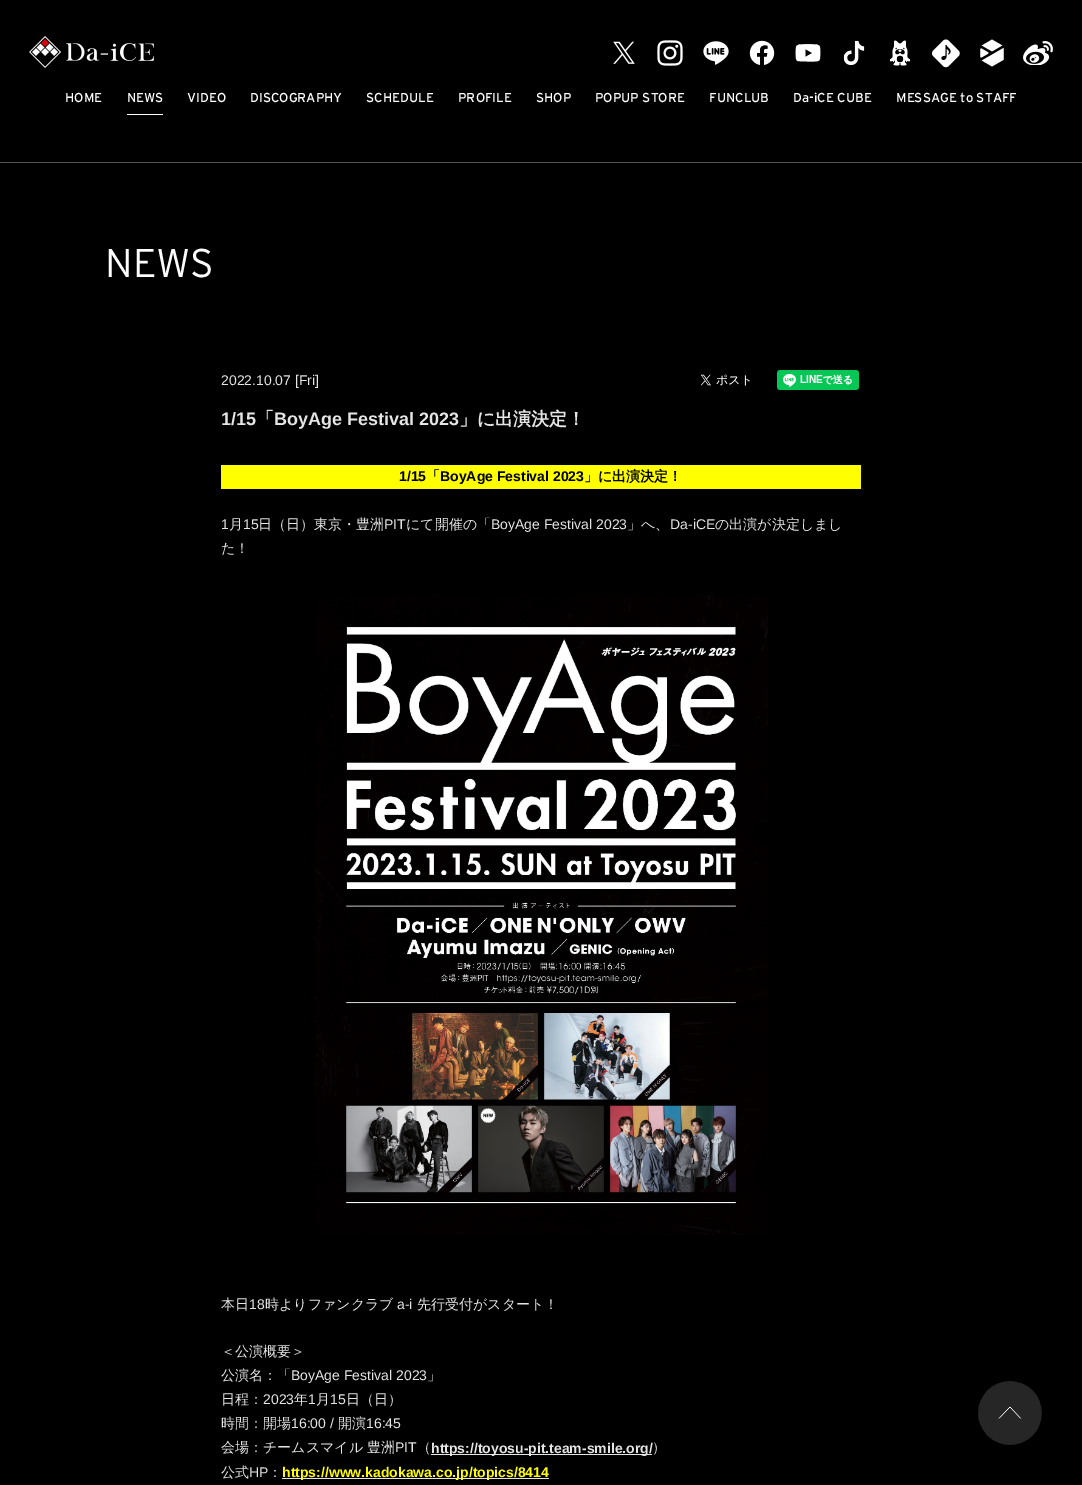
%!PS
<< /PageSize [1082 1485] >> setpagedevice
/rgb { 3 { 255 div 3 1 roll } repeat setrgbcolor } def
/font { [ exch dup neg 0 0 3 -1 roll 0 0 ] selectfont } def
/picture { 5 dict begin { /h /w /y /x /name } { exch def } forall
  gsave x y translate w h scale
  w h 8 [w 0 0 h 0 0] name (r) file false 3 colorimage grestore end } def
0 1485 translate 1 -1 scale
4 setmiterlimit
0 0 0 rgb
0 0 1082 1485 rectfill
(img/1.rgb) 29 36 125 32 picture
(img/2.rgb) 613 41 22 23 picture
(img/3.rgb) 657 40 26 26 picture
(img/4.rgb) 703 41 26 24 picture
(img/5.rgb) 749 40 26 25 picture
(img/6.rgb) 795 44 26 18 picture
(img/7.rgb) 843 40 22 26 picture
(img/8.rgb) 889 40 22 26 picture
(img/9.rgb) 932 39 28 29 picture
(img/10.rgb) 980 39 24 28 picture
(img/11.rgb) 1023 41 30 24 picture
255 255 255 rgb
127 114 36 1 rectfill
82 82 82 rgb
0 162 1082 1 rectfill
(img/12.rgb) 700 374 50 12 picture
(img/13.rgb) 777 370 82 20 picture
255 255 0 rgb
221 465 640 24 rectfill
(img/14.rgb) 314 595 454 640 picture
229 229 229 rgb
431 1454 221 1 rectfill
282 1478 267 1 rectfill
(img/15.rgb) 978 1381 64 64 picture
/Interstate-Regular 13 font
255 255 255 rgb
[
  [(HOME) 65 102]
  [(NEWS) 127 102]
  [(VIDEO) 187 102]
  [(DISCOGRAPHY) 250 102]
  [(SCHEDULE) 366 102]
  [(PROFILE) 458 102]
  [(SHOP) 536 102]
  [(POPUP STORE) 595 102]
  [(FUNCLUB) 709 102]
  [(Da-iCE CUBE) 793 102]
  [(MESSAGE to STAFF) 896 102]
] { aload pop moveto show } forall
/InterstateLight-Light 40 font
105 277 moveto (NEWS) show
/LiberationSans-Regular 14 font
229 229 229 rgb
221 385 moveto (2022.10.07 [Fri]) show
/LiberationSans-Bold 18 font
221 425 moveto (1/15) show
/WenQuanYiZenHei-Bold 18 font
256 425 moveto (「) show
/LiberationSans-Bold 18 font
274 425 moveto (BoyAge Festival 2023) show
/WenQuanYiZenHei-Bold 18 font
459 425 moveto (」に出演決定！) show
/LiberationSans-Bold 14 font
0 0 0 rgb
399 481 moveto (1/15) show
/WenQuanYiZenHei-Bold 14 font
426 481 moveto (「) show
/LiberationSans-Bold 14 font
440 481 moveto (BoyAge Festival 2023) show
/WenQuanYiZenHei-Bold 14 font
584 481 moveto (」に出演決定！) show
/LiberationSans-Regular 14 font
229 229 229 rgb
221 529 moveto (1) show
/WenQuanYiZenHei-Medium 14 font
229 529 moveto (月) show
/LiberationSans-Regular 14 font
243 529 moveto (15) show
/WenQuanYiZenHei-Medium 14 font
258 529 moveto (日（日）東京・豊洲) show
/LiberationSans-Regular 14 font
384 529 moveto (PIT) show
/WenQuanYiZenHei-Medium 14 font
406 529 moveto (にて開催の「) show
/LiberationSans-Regular 14 font
491 529 moveto (BoyAge Festival 2023) show
/WenQuanYiZenHei-Medium 14 font
627 529 moveto (」へ、) show
/LiberationSans-Regular 14 font
670 529 moveto (Da-iCE) show
/WenQuanYiZenHei-Medium 14 font
[
  [(の出演が決定しまし) 715 529]
  [(た！) 221 553]
  [(本日) 221 1309]
] { aload pop moveto show } forall
/LiberationSans-Regular 14 font
249 1309 moveto (18) show
/WenQuanYiZenHei-Medium 14 font
265 1309 moveto (時よりファンクラブ) show
/LiberationSans-Regular 14 font
397 1309 moveto (a-i) show
/WenQuanYiZenHei-Medium 14 font
[
  [(先行受付がスタート！) 417 1309]
  [(＜公演概要＞) 221 1356]
  [(公演名：「) 221 1380]
] { aload pop moveto show } forall
/LiberationSans-Regular 14 font
291 1380 moveto (BoyAge Festival 2023) show
/WenQuanYiZenHei-Medium 14 font
427 1380 moveto (」) show
221 1404 moveto (日程：) show
/LiberationSans-Regular 14 font
263 1404 moveto (2023) show
/WenQuanYiZenHei-Medium 14 font
294 1404 moveto (年) show
/LiberationSans-Regular 14 font
308 1404 moveto (1) show
/WenQuanYiZenHei-Medium 14 font
316 1404 moveto (月) show
/LiberationSans-Regular 14 font
330 1404 moveto (15) show
/WenQuanYiZenHei-Medium 14 font
346 1404 moveto (日（日）) show
221 1428 moveto (時間：開場) show
/LiberationSans-Regular 14 font
291 1428 moveto (16:00 /) show
/WenQuanYiZenHei-Medium 14 font
338 1428 moveto (開演) show
/LiberationSans-Regular 14 font
366 1428 moveto (16:45) show
/WenQuanYiZenHei-Medium 14 font
221 1452 moveto (会場：チームスマイル 豊洲) show
/LiberationSans-Regular 14 font
395 1452 moveto (PIT) show
/WenQuanYiZenHei-Medium 14 font
417 1452 moveto (（) show
/LiberationSans-Bold 14 font
431 1453 moveto (https://toyosu-pit.team-smile.org/) show
/WenQuanYiZenHei-Medium 14 font
652 1452 moveto (）) show
221 1477 moveto (公式) show
/LiberationSans-Regular 14 font
249 1477 moveto (HP) show
/WenQuanYiZenHei-Medium 14 font
268 1477 moveto (：) show
/LiberationSans-Bold 14 font
255 255 0 rgb
282 1477 moveto (https://www.kadokawa.co.jp/topics/8414) show
showpage
